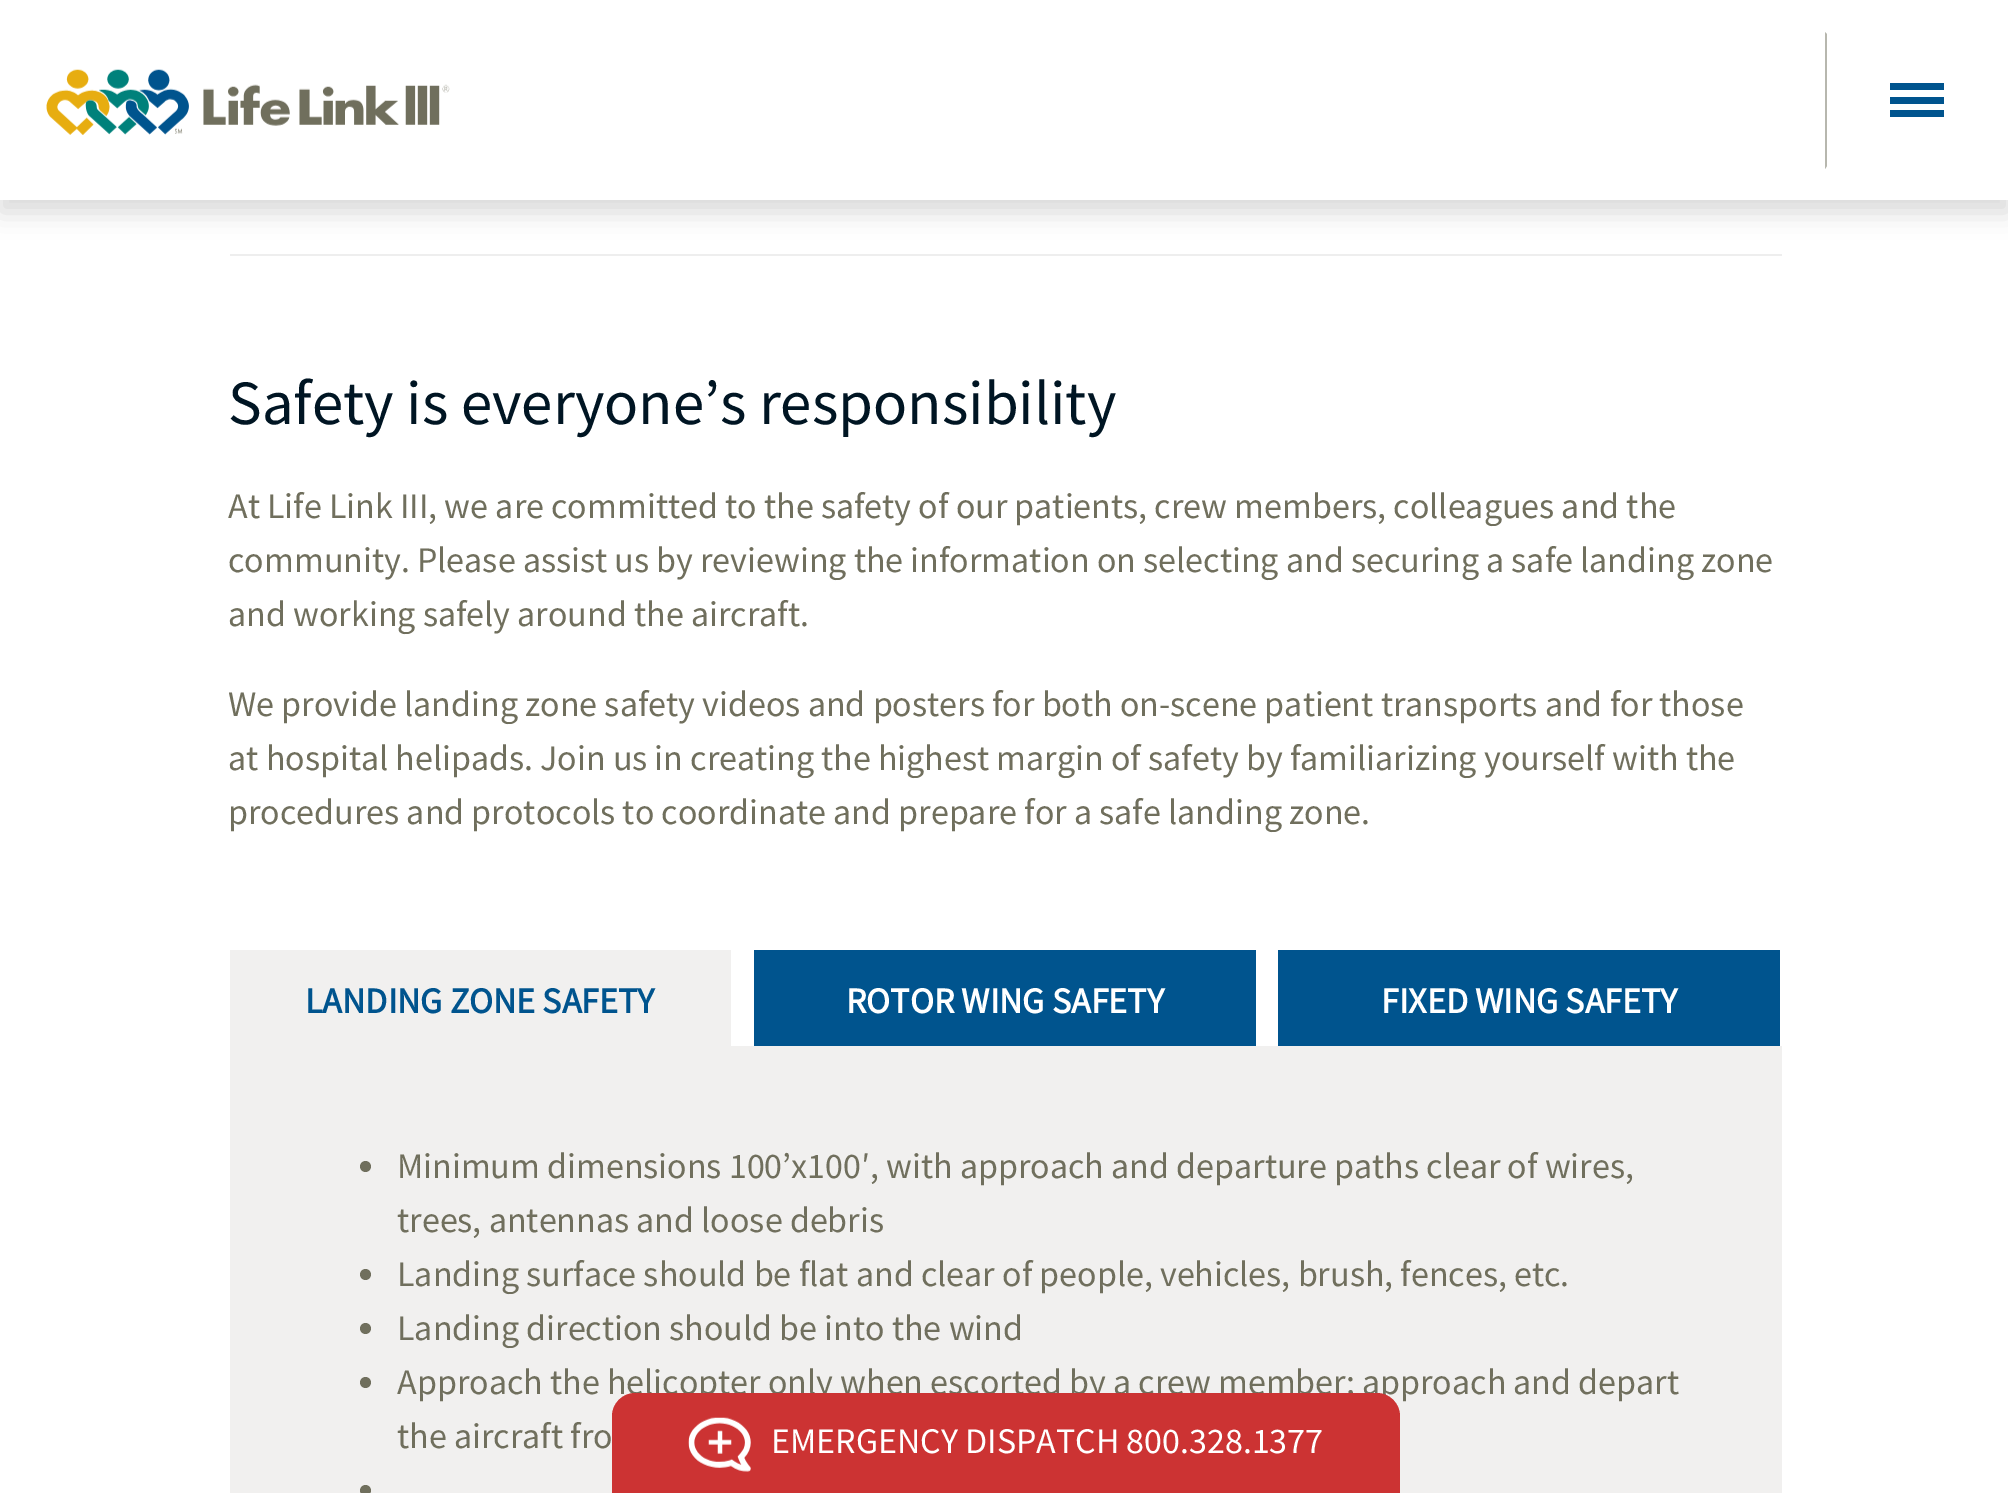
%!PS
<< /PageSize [2008 1493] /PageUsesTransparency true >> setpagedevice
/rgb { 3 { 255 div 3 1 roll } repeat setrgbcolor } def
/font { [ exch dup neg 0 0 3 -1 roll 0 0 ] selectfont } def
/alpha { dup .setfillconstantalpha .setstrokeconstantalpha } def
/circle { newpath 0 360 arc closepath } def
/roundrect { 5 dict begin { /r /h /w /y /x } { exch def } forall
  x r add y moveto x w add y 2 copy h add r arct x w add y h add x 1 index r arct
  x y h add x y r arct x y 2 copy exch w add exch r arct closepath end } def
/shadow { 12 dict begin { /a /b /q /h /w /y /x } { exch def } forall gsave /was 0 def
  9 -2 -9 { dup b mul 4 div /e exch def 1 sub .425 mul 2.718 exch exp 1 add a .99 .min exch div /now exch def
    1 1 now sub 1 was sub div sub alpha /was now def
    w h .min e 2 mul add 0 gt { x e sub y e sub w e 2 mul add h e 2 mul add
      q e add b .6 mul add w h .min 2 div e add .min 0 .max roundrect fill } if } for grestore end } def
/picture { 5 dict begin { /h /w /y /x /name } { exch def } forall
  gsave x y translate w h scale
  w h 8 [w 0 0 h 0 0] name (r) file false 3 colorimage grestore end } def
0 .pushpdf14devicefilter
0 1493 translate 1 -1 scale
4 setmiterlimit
255 255 255 rgb
0 0 2008 1493 rectfill
0 0 0 rgb
0 11 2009 201 0 12.5 0.15 shadow
255 255 255 rgb
0 0 2008 200 rectfill
(img/1.rgb) 46 69 404 66 picture
183 183 174 rgb
1825 169 moveto 1825 32 lineto 1827 34 lineto 1827 166 lineto closepath fill
[
  [1890 97 54 7 0 84 142]
  [1890 83 54 7 0 84 142]
  [1890 110 54 7 0 84 142]
  [230 254 1552 2 238 238 238]
  [230 950 501 96 241 240 239]
  [754 950 502 96 0 84 142]
  [1278 950 502 96 0 84 142]
  [230 1046 1552 447 241 240 239]
] { aload pop rgb rectfill } forall
112 111 93 rgb
365.5 1166.5 5.5 circle fill
365.5 1274.5 5.5 circle fill
365.5 1328.5 5.5 circle fill
365.5 1382.5 5.5 circle fill
365.5 1490.5 5.5 circle fill
/SourceSansPro-Regular 63 font
0 21 35 rgb
228 424 moveto (Safety is everyone’s responsibility) show
/SourceSansPro-Regular 36 font
112 111 93 rgb
[
  [(At Life Link III, we are committed to the safety of our patients, crew members, colleagues and the) 228 518]
  [(community. Please assist us by reviewing the information on selecting and securing a safe landing zone) 228 572]
  [(and working safely around the aircraft.) 228 626]
  [(We provide landing zone safety videos and posters for both on-scene patient transports and for those) 228 716]
  [(at hospital helipads. Join us in creating the highest margin of safety by familiarizing yourself with the) 228 770]
  [(procedures and protocols to coordinate and prepare for a safe landing zone.) 228 824]
] { aload pop moveto show } forall
/SourceSansPro-Bold 36 font
0 84 142 rgb
305 1013 moveto (LANDING ZONE SAFETY) show
255 255 255 rgb
846 1013 moveto (ROTOR WING SAFETY) show
1381 1013 moveto (FIXED WING SAFETY) show
/SourceSansPro-Regular 36 font
112 111 93 rgb
[
  [(Minimum dimensions 100’x100′, with approach and departure paths clear of wires,) 397 1178]
  [(trees, antennas and loose debris) 397 1232]
  [(Landing surface should be flat and clear of people, vehicles, brush, fences, etc.) 397 1286]
  [(Landing direction should be into the wind) 397 1340]
  [(Approach the helicopter only when escorted by a crew member; approach and depart) 397 1394]
  [(the aircraft fro) 397 1448]
] { aload pop moveto show } forall
204 51 51 rgb
635 1393 moveto 1377 1393 lineto 1389.5 1393 1400 1403.5 1400 1416 curveto 1400 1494 lineto 612 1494 lineto 612 1416 lineto 612 1403.5 622.5 1393 635 1393 curveto closepath fill
(img/2.rgb) 688 1417 63 55 picture
255 255 255 rgb
771 1453 moveto (EMERGENCY DISPATCH 800.328.1377) show
.poppdf14devicefilter showpage
